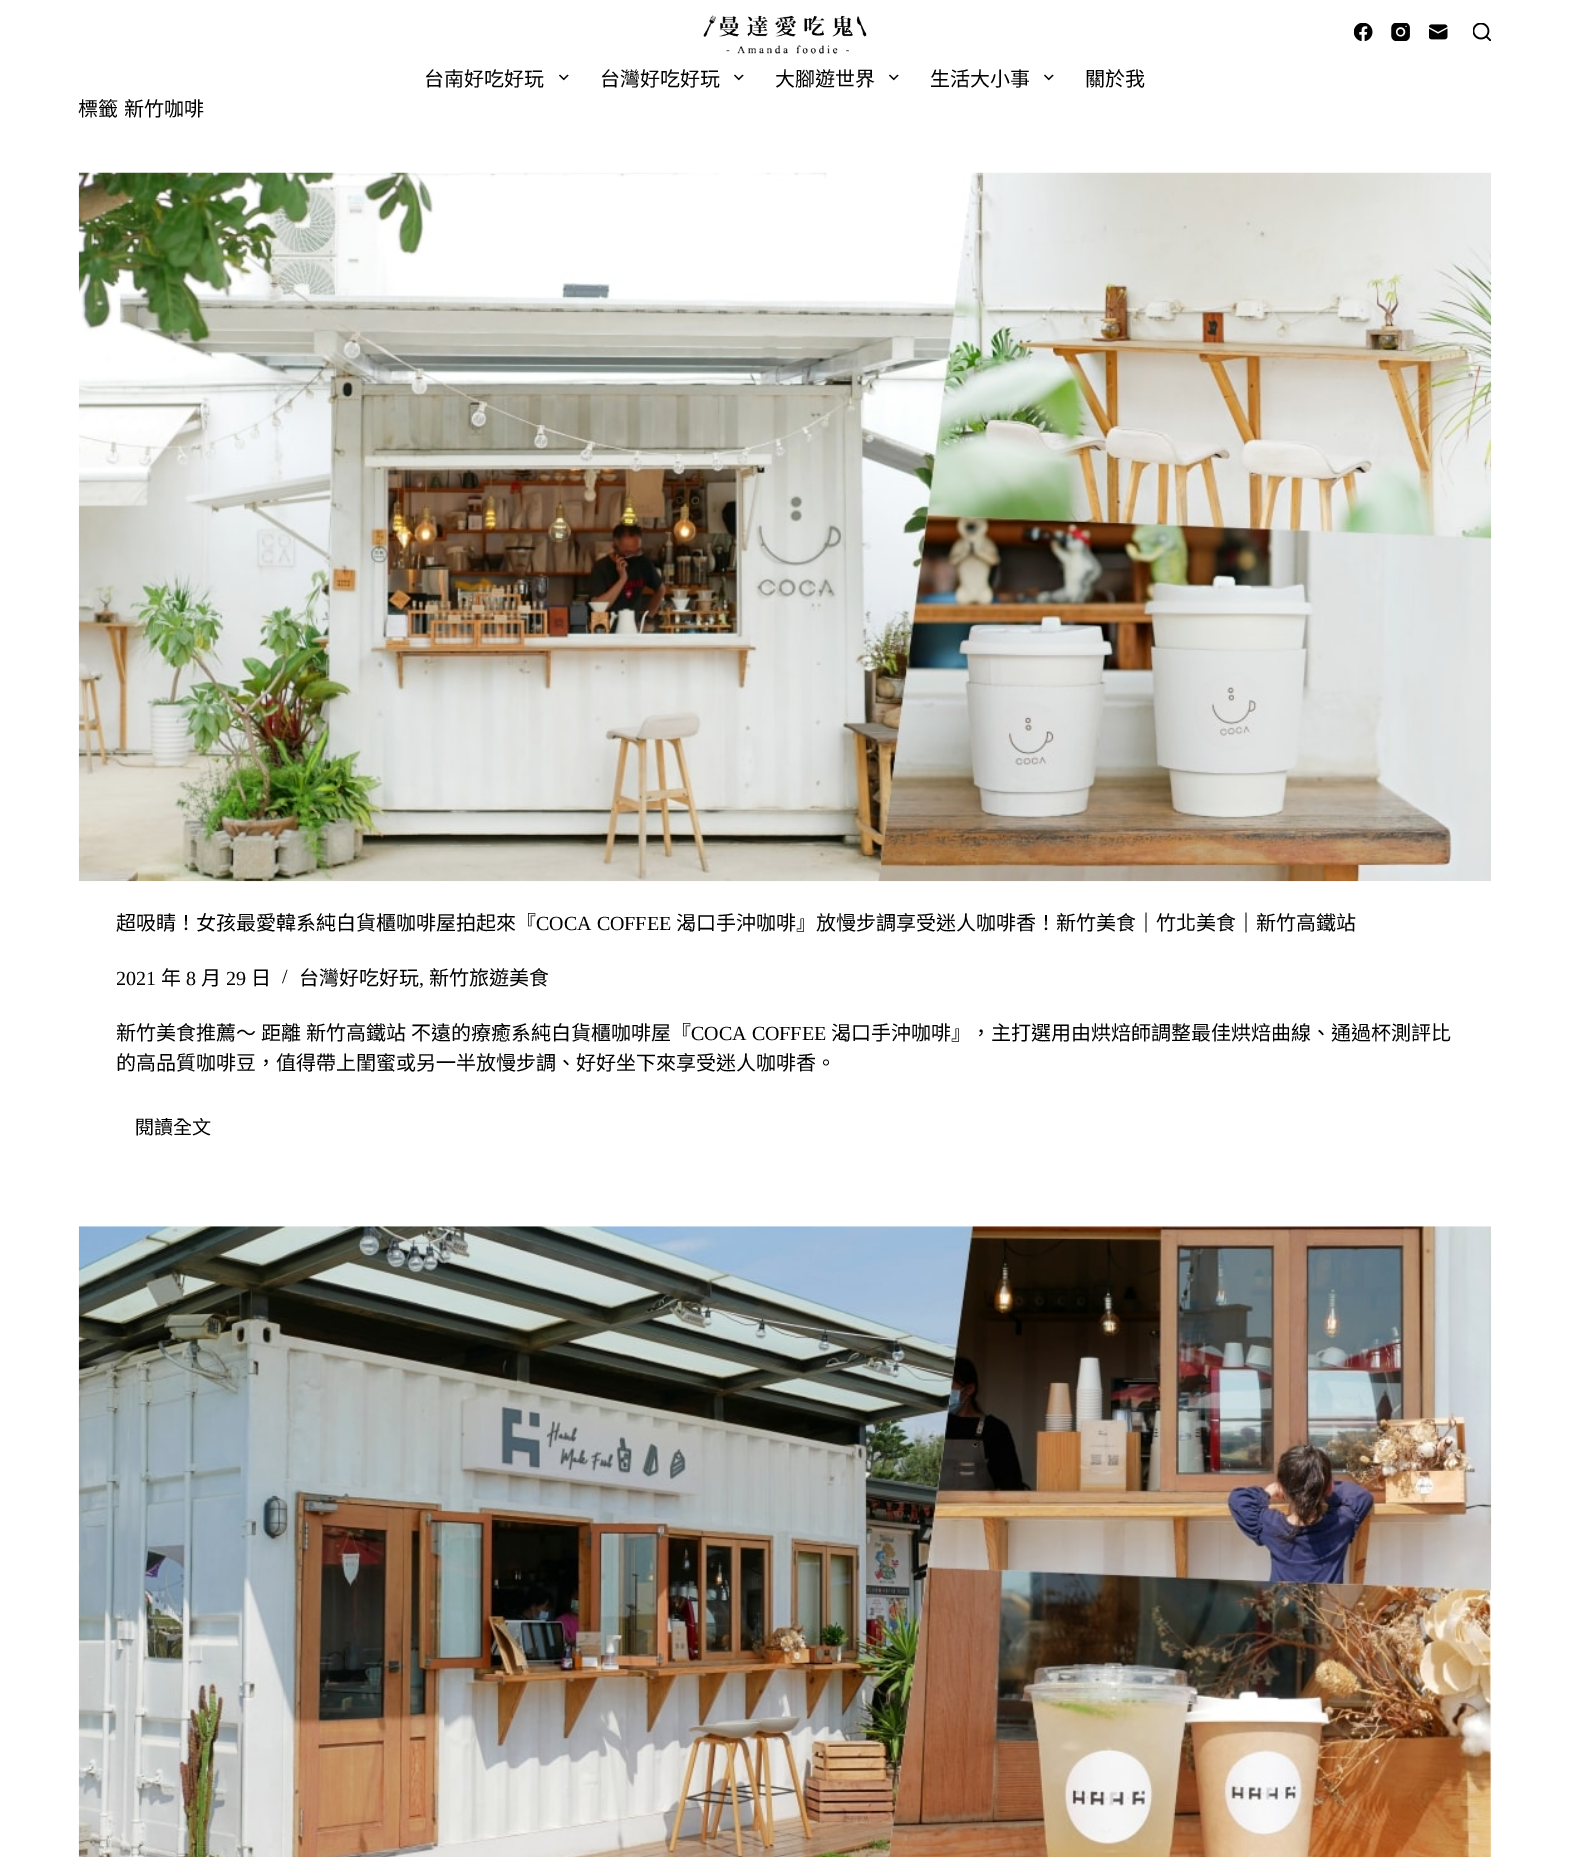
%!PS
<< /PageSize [1569 1857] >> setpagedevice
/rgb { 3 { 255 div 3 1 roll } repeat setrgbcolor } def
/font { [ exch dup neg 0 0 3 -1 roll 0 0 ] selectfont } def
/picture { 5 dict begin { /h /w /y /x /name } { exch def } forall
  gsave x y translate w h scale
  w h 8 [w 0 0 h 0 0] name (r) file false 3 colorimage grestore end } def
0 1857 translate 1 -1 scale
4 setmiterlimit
255 255 255 rgb
0 0 1569 1857 rectfill
(img/1.rgb) 703 15 164 39 picture
(img/2.rgb) 1354 23 19 18 picture
(img/3.rgb) 1391 23 19 18 picture
(img/4.rgb) 1429 24 19 16 picture
(img/5.rgb) 1473 23 18 18 picture
(img/6.rgb) 559 74 10 7 picture
(img/6.rgb) 734 74 10 7 picture
(img/6.rgb) 889 74 10 7 picture
(img/6.rgb) 1044 74 10 7 picture
(img/7.rgb) 78 172 1414 710 picture
(img/8.rgb) 78 1226 1414 631 picture
/NotoSansCJKTC-Regular 20 font
0 0 0 rgb
[
  [(台南好吃好玩) 424 86]
  [(台灣好吃好玩) 600 86]
  [(大腳遊世界) 775 86]
  [(生活大小事) 930 86]
  [(關於我) 1085 86]
  [(標籤) 78 116]
  [(新竹咖啡) 124 116]
  [(超吸睛！女孩最愛韓系純白貨櫃咖啡屋拍起來『) 116 930]
] { aload pop moveto show } forall
/LiberationSerif-Regular 20 font
536 930 moveto (COCA COFFEE) show
/NotoSansCJKTC-Regular 20 font
676 930 moveto (渴口手沖咖啡』放慢步調享受迷人咖啡香！新竹美食｜竹北美食｜新竹高鐵站) show
/LiberationSerif-Regular 20 font
116 985 moveto (2021) show
/NotoSansCJKTC-Regular 20 font
161 985 moveto (年) show
/LiberationSerif-Regular 20 font
186 985 moveto (8) show
/NotoSansCJKTC-Regular 20 font
201 985 moveto (月) show
/LiberationSerif-Regular 20 font
226 985 moveto (29) show
/NotoSansCJKTC-Regular 20 font
251 985 moveto (日) show
/LiberationSerif-Regular 20 font
282 983 moveto (/) show
/NotoSansCJKTC-Regular 20 font
299 985 moveto (台灣好吃好玩) show
/LiberationSerif-Regular 20 font
419 985 moveto (,) show
/NotoSansCJKTC-Regular 20 font
[
  [(新竹旅遊美食) 429 985]
  [(新竹美食推薦～) 116 1040]
  [(距離) 261 1040]
  [(新竹高鐵站) 306 1040]
  [(不遠的療癒系純白貨櫃咖啡屋『) 411 1040]
] { aload pop moveto show } forall
/LiberationSerif-Regular 20 font
691 1040 moveto (COCA COFFEE) show
/NotoSansCJKTC-Regular 20 font
831 1040 moveto (渴口手沖咖啡』，主打選用由烘焙師調整最佳烘焙曲線、通過杯測評比) show
116 1070 moveto (的高品質咖啡豆，值得帶上閨蜜或另一半放慢步調、好好坐下來享受迷人咖啡香。) show
/NotoSansCJKTC-Regular 19 font
135 1134 moveto (閱讀全文) show
showpage
